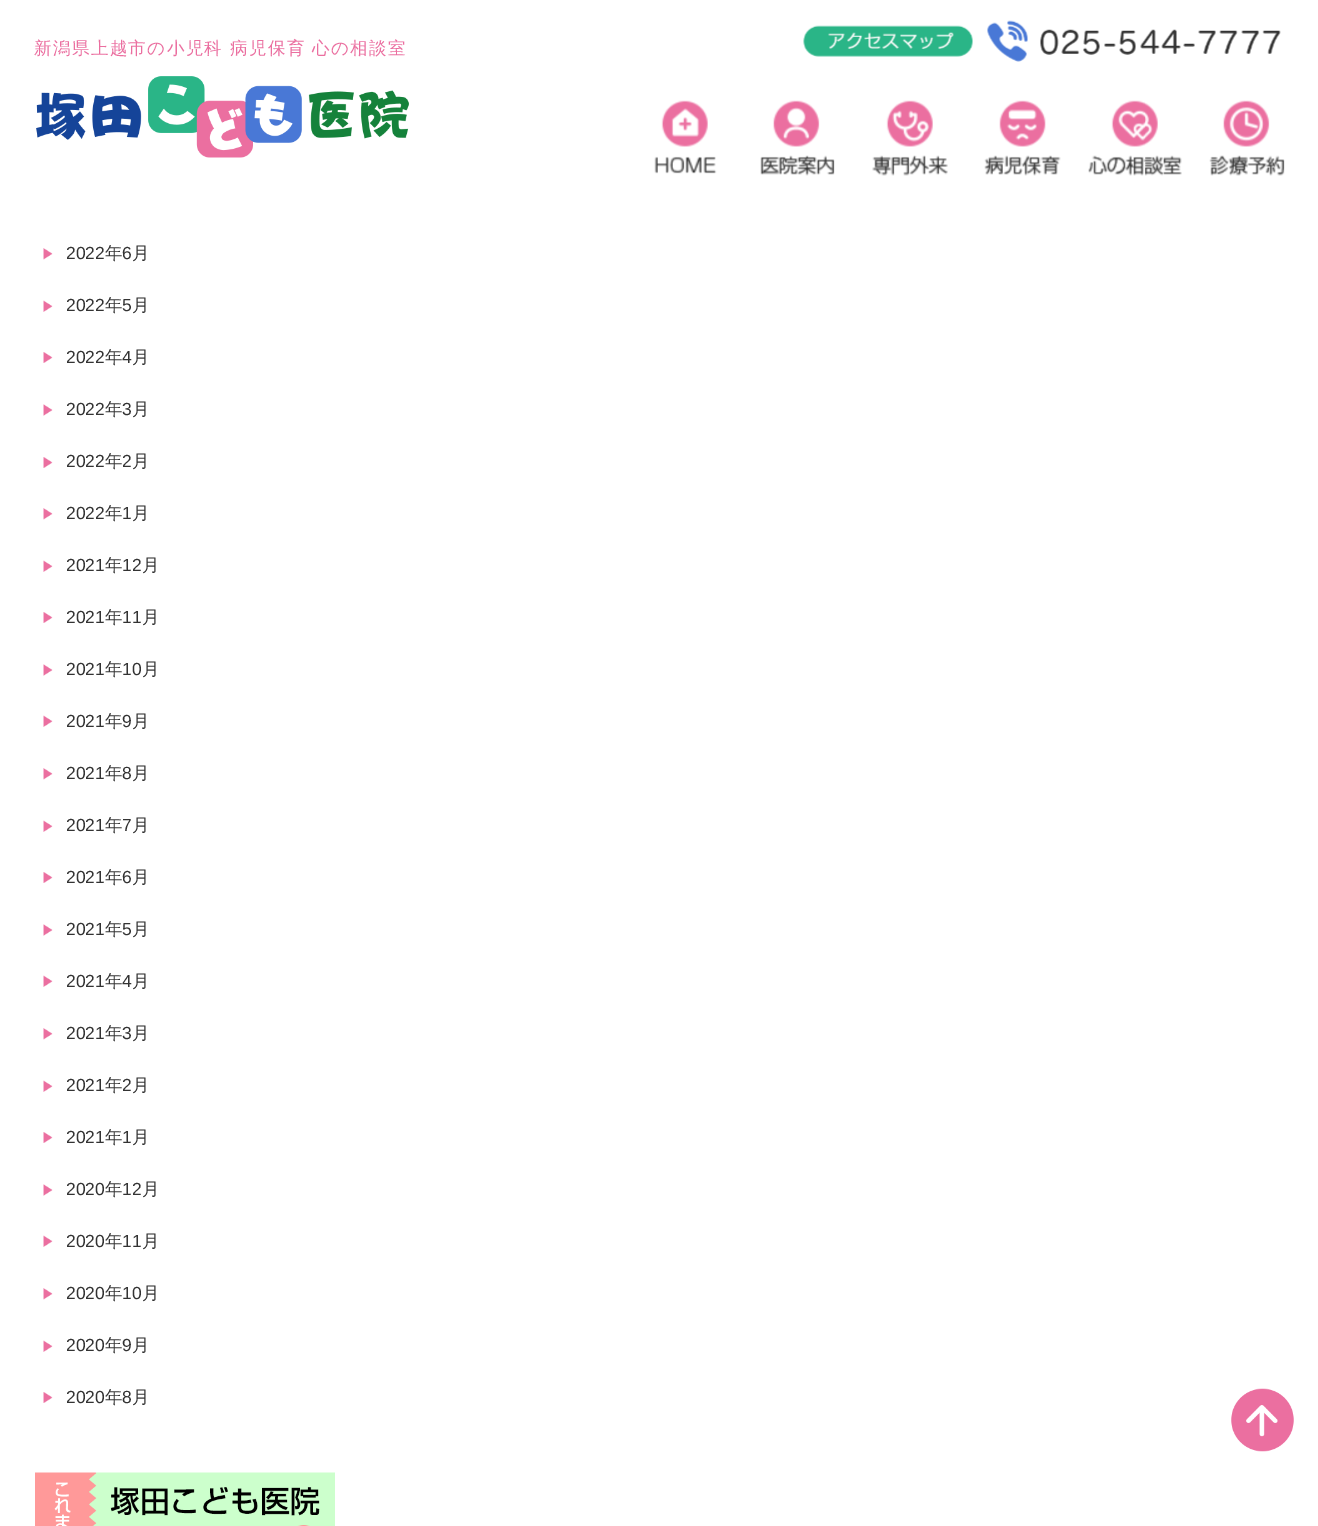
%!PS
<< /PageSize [1318 1526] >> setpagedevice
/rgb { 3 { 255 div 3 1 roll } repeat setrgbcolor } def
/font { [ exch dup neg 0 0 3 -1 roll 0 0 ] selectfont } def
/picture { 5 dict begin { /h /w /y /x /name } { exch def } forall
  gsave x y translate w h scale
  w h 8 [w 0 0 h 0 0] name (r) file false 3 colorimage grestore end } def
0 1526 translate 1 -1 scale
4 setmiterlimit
255 255 255 rgb
0 0 1318 1526 rectfill
(img/1.rgb) 36 76 373 82 picture
(img/2.rgb) 803 25 170 32 picture
(img/3.rgb) 987 20 294 42 picture
(img/4.rgb) 654 100 63 74 picture
(img/5.rgb) 760 100 75 76 picture
(img/6.rgb) 872 100 76 76 picture
(img/7.rgb) 984 100 77 76 picture
(img/8.rgb) 1088 100 94 76 picture
(img/9.rgb) 1209 100 76 76 picture
(img/10.rgb) 43 248 10 12 picture
(img/11.rgb) 43 300 10 12 picture
(img/12.rgb) 43 352 10 11 picture
(img/13.rgb) 43 404 10 12 picture
(img/12.rgb) 43 457 10 11 picture
(img/10.rgb) 43 508 10 12 picture
(img/11.rgb) 43 560 10 12 picture
(img/12.rgb) 43 612 10 11 picture
(img/13.rgb) 43 664 10 12 picture
(img/11.rgb) 43 715 10 12 picture
(img/10.rgb) 43 768 10 12 picture
(img/11.rgb) 43 820 10 12 picture
(img/12.rgb) 43 872 10 11 picture
(img/13.rgb) 43 924 10 12 picture
(img/11.rgb) 43 975 10 12 picture
(img/10.rgb) 43 1028 10 12 picture
(img/11.rgb) 43 1080 10 12 picture
(img/12.rgb) 43 1132 10 11 picture
(img/13.rgb) 43 1184 10 12 picture
(img/11.rgb) 43 1235 10 12 picture
(img/10.rgb) 43 1288 10 12 picture
(img/11.rgb) 43 1340 10 12 picture
(img/12.rgb) 43 1392 10 11 picture
(img/14.rgb) 35 1472 300 54 picture
(img/15.rgb) 1231 1388 63 64 picture
/WenQuanYiZenHei-Medium 17.5 font
235 111 160 rgb
34 54 moveto 1.4 0 (新潟県上越市の小児科 病児保育 心の相談室) ashow
/LiberationSans-Regular 17.5 font
51 51 51 rgb
66 259 moveto (2022) show
/WenQuanYiZenHei-Medium 17.5 font
105 259 moveto (年) show
/LiberationSans-Regular 17.5 font
122 259 moveto (6) show
/WenQuanYiZenHei-Medium 17.5 font
132 259 moveto (月) show
/LiberationSans-Regular 17.5 font
66 311 moveto (2022) show
/WenQuanYiZenHei-Medium 17.5 font
105 311 moveto (年) show
/LiberationSans-Regular 17.5 font
122 311 moveto (5) show
/WenQuanYiZenHei-Medium 17.5 font
132 311 moveto (月) show
/LiberationSans-Regular 17.5 font
66 363 moveto (2022) show
/WenQuanYiZenHei-Medium 17.5 font
105 363 moveto (年) show
/LiberationSans-Regular 17.5 font
122 363 moveto (4) show
/WenQuanYiZenHei-Medium 17.5 font
132 363 moveto (月) show
/LiberationSans-Regular 17.5 font
66 415 moveto (2022) show
/WenQuanYiZenHei-Medium 17.5 font
105 415 moveto (年) show
/LiberationSans-Regular 17.5 font
122 415 moveto (3) show
/WenQuanYiZenHei-Medium 17.5 font
132 415 moveto (月) show
/LiberationSans-Regular 17.5 font
66 467 moveto (2022) show
/WenQuanYiZenHei-Medium 17.5 font
105 467 moveto (年) show
/LiberationSans-Regular 17.5 font
122 467 moveto (2) show
/WenQuanYiZenHei-Medium 17.5 font
132 467 moveto (月) show
/LiberationSans-Regular 17.5 font
66 519 moveto (2022) show
/WenQuanYiZenHei-Medium 17.5 font
105 519 moveto (年) show
/LiberationSans-Regular 17.5 font
122 519 moveto (1) show
/WenQuanYiZenHei-Medium 17.5 font
132 519 moveto (月) show
/LiberationSans-Regular 17.5 font
66 571 moveto (2021) show
/WenQuanYiZenHei-Medium 17.5 font
105 571 moveto (年) show
/LiberationSans-Regular 17.5 font
122 571 moveto (12) show
/WenQuanYiZenHei-Medium 17.5 font
142 571 moveto (月) show
/LiberationSans-Regular 17.5 font
66 623 moveto (2021) show
/WenQuanYiZenHei-Medium 17.5 font
105 623 moveto (年) show
/LiberationSans-Regular 17.5 font
122 623 moveto (11) show
/WenQuanYiZenHei-Medium 17.5 font
142 623 moveto (月) show
/LiberationSans-Regular 17.5 font
66 675 moveto (2021) show
/WenQuanYiZenHei-Medium 17.5 font
105 675 moveto (年) show
/LiberationSans-Regular 17.5 font
122 675 moveto (10) show
/WenQuanYiZenHei-Medium 17.5 font
142 675 moveto (月) show
/LiberationSans-Regular 17.5 font
66 727 moveto (2021) show
/WenQuanYiZenHei-Medium 17.5 font
105 727 moveto (年) show
/LiberationSans-Regular 17.5 font
122 727 moveto (9) show
/WenQuanYiZenHei-Medium 17.5 font
132 727 moveto (月) show
/LiberationSans-Regular 17.5 font
66 779 moveto (2021) show
/WenQuanYiZenHei-Medium 17.5 font
105 779 moveto (年) show
/LiberationSans-Regular 17.5 font
122 779 moveto (8) show
/WenQuanYiZenHei-Medium 17.5 font
132 779 moveto (月) show
/LiberationSans-Regular 17.5 font
66 831 moveto (2021) show
/WenQuanYiZenHei-Medium 17.5 font
105 831 moveto (年) show
/LiberationSans-Regular 17.5 font
122 831 moveto (7) show
/WenQuanYiZenHei-Medium 17.5 font
132 831 moveto (月) show
/LiberationSans-Regular 17.5 font
66 883 moveto (2021) show
/WenQuanYiZenHei-Medium 17.5 font
105 883 moveto (年) show
/LiberationSans-Regular 17.5 font
122 883 moveto (6) show
/WenQuanYiZenHei-Medium 17.5 font
132 883 moveto (月) show
/LiberationSans-Regular 17.5 font
66 935 moveto (2021) show
/WenQuanYiZenHei-Medium 17.5 font
105 935 moveto (年) show
/LiberationSans-Regular 17.5 font
122 935 moveto (5) show
/WenQuanYiZenHei-Medium 17.5 font
132 935 moveto (月) show
/LiberationSans-Regular 17.5 font
66 987 moveto (2021) show
/WenQuanYiZenHei-Medium 17.5 font
105 987 moveto (年) show
/LiberationSans-Regular 17.5 font
122 987 moveto (4) show
/WenQuanYiZenHei-Medium 17.5 font
132 987 moveto (月) show
/LiberationSans-Regular 17.5 font
66 1039 moveto (2021) show
/WenQuanYiZenHei-Medium 17.5 font
105 1039 moveto (年) show
/LiberationSans-Regular 17.5 font
122 1039 moveto (3) show
/WenQuanYiZenHei-Medium 17.5 font
132 1039 moveto (月) show
/LiberationSans-Regular 17.5 font
66 1091 moveto (2021) show
/WenQuanYiZenHei-Medium 17.5 font
105 1091 moveto (年) show
/LiberationSans-Regular 17.5 font
122 1091 moveto (2) show
/WenQuanYiZenHei-Medium 17.5 font
132 1091 moveto (月) show
/LiberationSans-Regular 17.5 font
66 1143 moveto (2021) show
/WenQuanYiZenHei-Medium 17.5 font
105 1143 moveto (年) show
/LiberationSans-Regular 17.5 font
122 1143 moveto (1) show
/WenQuanYiZenHei-Medium 17.5 font
132 1143 moveto (月) show
/LiberationSans-Regular 17.5 font
66 1195 moveto (2020) show
/WenQuanYiZenHei-Medium 17.5 font
105 1195 moveto (年) show
/LiberationSans-Regular 17.5 font
122 1195 moveto (12) show
/WenQuanYiZenHei-Medium 17.5 font
142 1195 moveto (月) show
/LiberationSans-Regular 17.5 font
66 1247 moveto (2020) show
/WenQuanYiZenHei-Medium 17.5 font
105 1247 moveto (年) show
/LiberationSans-Regular 17.5 font
122 1247 moveto (11) show
/WenQuanYiZenHei-Medium 17.5 font
142 1247 moveto (月) show
/LiberationSans-Regular 17.5 font
66 1299 moveto (2020) show
/WenQuanYiZenHei-Medium 17.5 font
105 1299 moveto (年) show
/LiberationSans-Regular 17.5 font
122 1299 moveto (10) show
/WenQuanYiZenHei-Medium 17.5 font
142 1299 moveto (月) show
/LiberationSans-Regular 17.5 font
66 1351 moveto (2020) show
/WenQuanYiZenHei-Medium 17.5 font
105 1351 moveto (年) show
/LiberationSans-Regular 17.5 font
122 1351 moveto (9) show
/WenQuanYiZenHei-Medium 17.5 font
132 1351 moveto (月) show
/LiberationSans-Regular 17.5 font
66 1403 moveto (2020) show
/WenQuanYiZenHei-Medium 17.5 font
105 1403 moveto (年) show
/LiberationSans-Regular 17.5 font
122 1403 moveto (8) show
/WenQuanYiZenHei-Medium 17.5 font
132 1403 moveto (月) show
showpage
